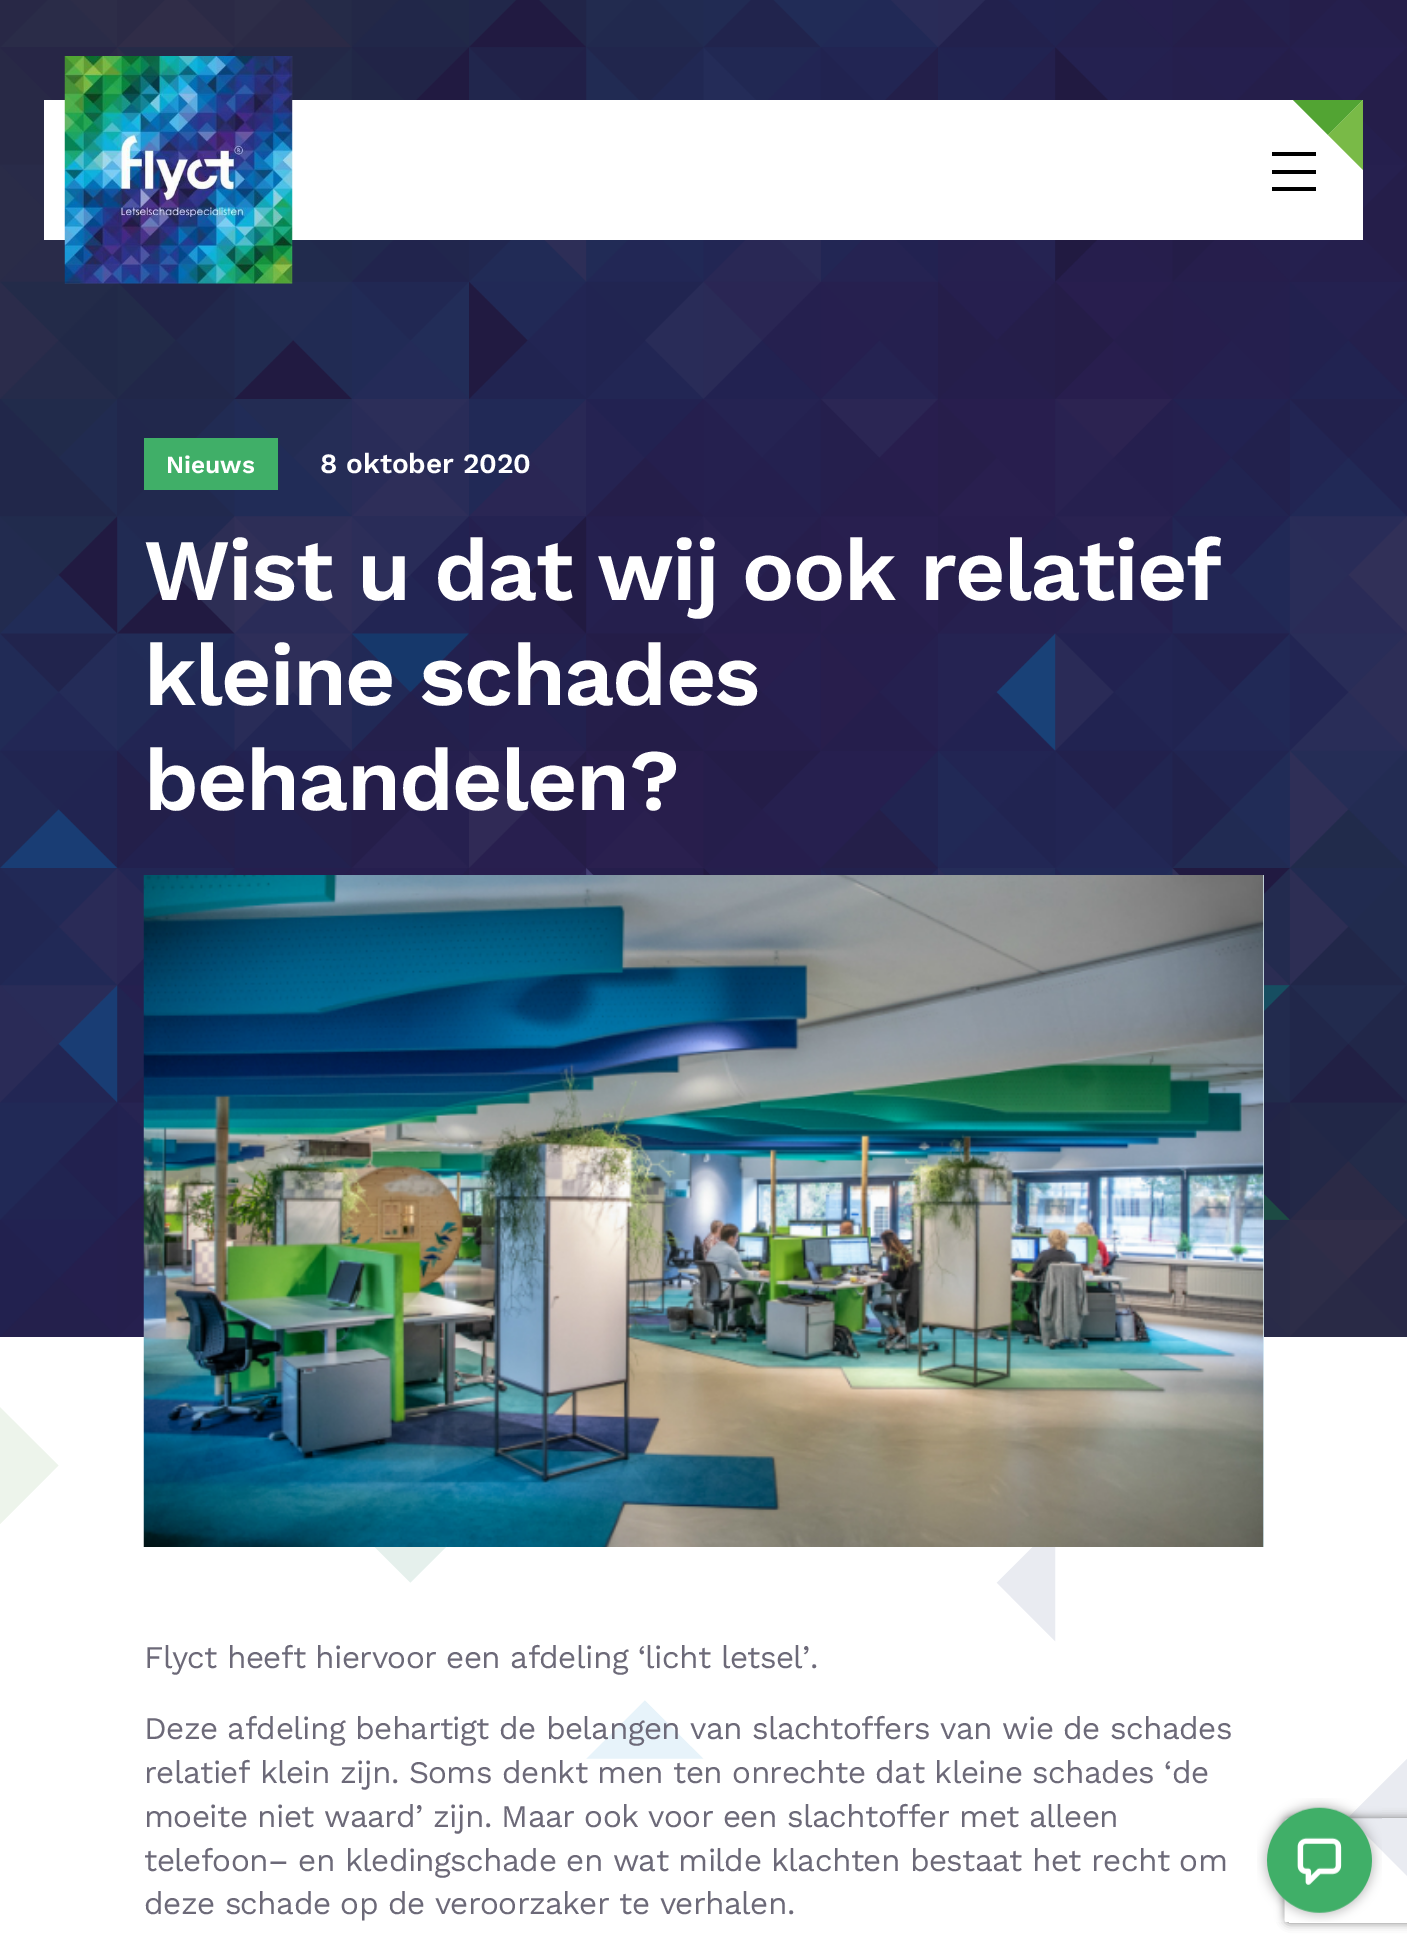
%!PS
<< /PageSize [1407 1947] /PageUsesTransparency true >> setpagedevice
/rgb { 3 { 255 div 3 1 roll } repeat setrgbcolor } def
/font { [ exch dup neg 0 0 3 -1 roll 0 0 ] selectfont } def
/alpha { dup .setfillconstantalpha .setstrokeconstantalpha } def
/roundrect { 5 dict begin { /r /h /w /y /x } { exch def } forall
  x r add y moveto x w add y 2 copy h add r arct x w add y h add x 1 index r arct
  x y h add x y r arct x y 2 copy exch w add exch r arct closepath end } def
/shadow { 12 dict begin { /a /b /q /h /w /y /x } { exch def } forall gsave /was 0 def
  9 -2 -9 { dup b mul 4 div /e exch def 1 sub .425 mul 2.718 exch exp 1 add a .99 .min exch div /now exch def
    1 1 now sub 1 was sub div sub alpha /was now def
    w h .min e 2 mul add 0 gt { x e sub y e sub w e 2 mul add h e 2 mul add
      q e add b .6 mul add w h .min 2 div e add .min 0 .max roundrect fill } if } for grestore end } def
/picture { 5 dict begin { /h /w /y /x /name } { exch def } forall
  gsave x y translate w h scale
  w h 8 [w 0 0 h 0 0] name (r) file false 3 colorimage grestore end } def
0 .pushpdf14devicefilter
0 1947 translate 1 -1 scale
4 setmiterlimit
255 255 255 rgb
0 0 1407 1947 rectfill
(img/1.rgb) 0 1407 1407 469 picture
37 29 72 rgb
0 0 1407 1337 rectfill
(img/3.rgb) 0 0 1407 1337 picture
255 255 255 rgb
44 100 1319 140 rectfill
(img/2.rgb) 64 56 229 228 picture
[
  [1272 152 44 4 0 0 0]
  [1272 170 44 4 0 0 0]
  [1272 187 44 4 0 0 0]
] { aload pop rgb rectfill } forall
82 164 51 rgb
1363 100 moveto 1293 100 lineto 1328 135 lineto closepath fill
121 186 71 rgb
1363 170 moveto 1363 100 lineto 1328 135 lineto closepath fill
64 175 104 rgb
144 438 134 52 rectfill
221 241 250 rgb
1263 875 1 672 rectfill
(img/4.rgb) 143 875 1121 672 picture
gsave
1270 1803 moveto 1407 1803 lineto 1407 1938 lineto 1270 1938 lineto closepath 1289 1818 moveto 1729 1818 lineto 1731 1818 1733 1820 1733 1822 curveto 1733 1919 lineto 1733 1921 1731 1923 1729 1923 curveto 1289 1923 lineto 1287 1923 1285 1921 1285 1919 curveto 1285 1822 lineto 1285 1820 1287 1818 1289 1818 curveto closepath eoclip newpath
128 128 128 rgb
1285 1818 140 105 4 4.5 1 shadow
grestore
(img/5.rgb) 1257 1798 125 124 picture
/WorkSans-SemiBold 24.5 font
255 255 255 rgb
166 473 moveto (Nieuws) show
/WorkSans-SemiBold 28 font
320 473 moveto (8 oktober 2020) show
/WorkSans-SemiBold 87.5 font
144 600 moveto -1.75 0 (Wist u dat wij ook relatief) ashow
144 705 moveto -1.75 0 (kleine schades) ashow
144 810 moveto -1.75 0 (behandelen?) ashow
/WorkSans-Regular 31.5 font
108 105 120 rgb
144 1668 moveto -0.63 0 (Flyct heeft hiervoor een afdeling ‘licht letsel’.) ashow
144 1739 moveto -0.63 0 (Deze afdeling behartigt de belangen van slachtoffers van wie de schades) ashow
144 1783 moveto -0.63 0 (relatief klein zijn. Soms denkt men ten onrechte dat kleine schades ‘de) ashow
144 1827 moveto -0.63 0 (moeite niet waard’ zijn. Maar ook voor een slachtoffer met alleen) ashow
144 1871 moveto -0.63 0 (telefoon– en kledingschade en wat milde klachten bestaat het recht om) ashow
144 1914 moveto -0.63 0 (deze schade op de veroorzaker te verhalen.) ashow
.poppdf14devicefilter showpage
